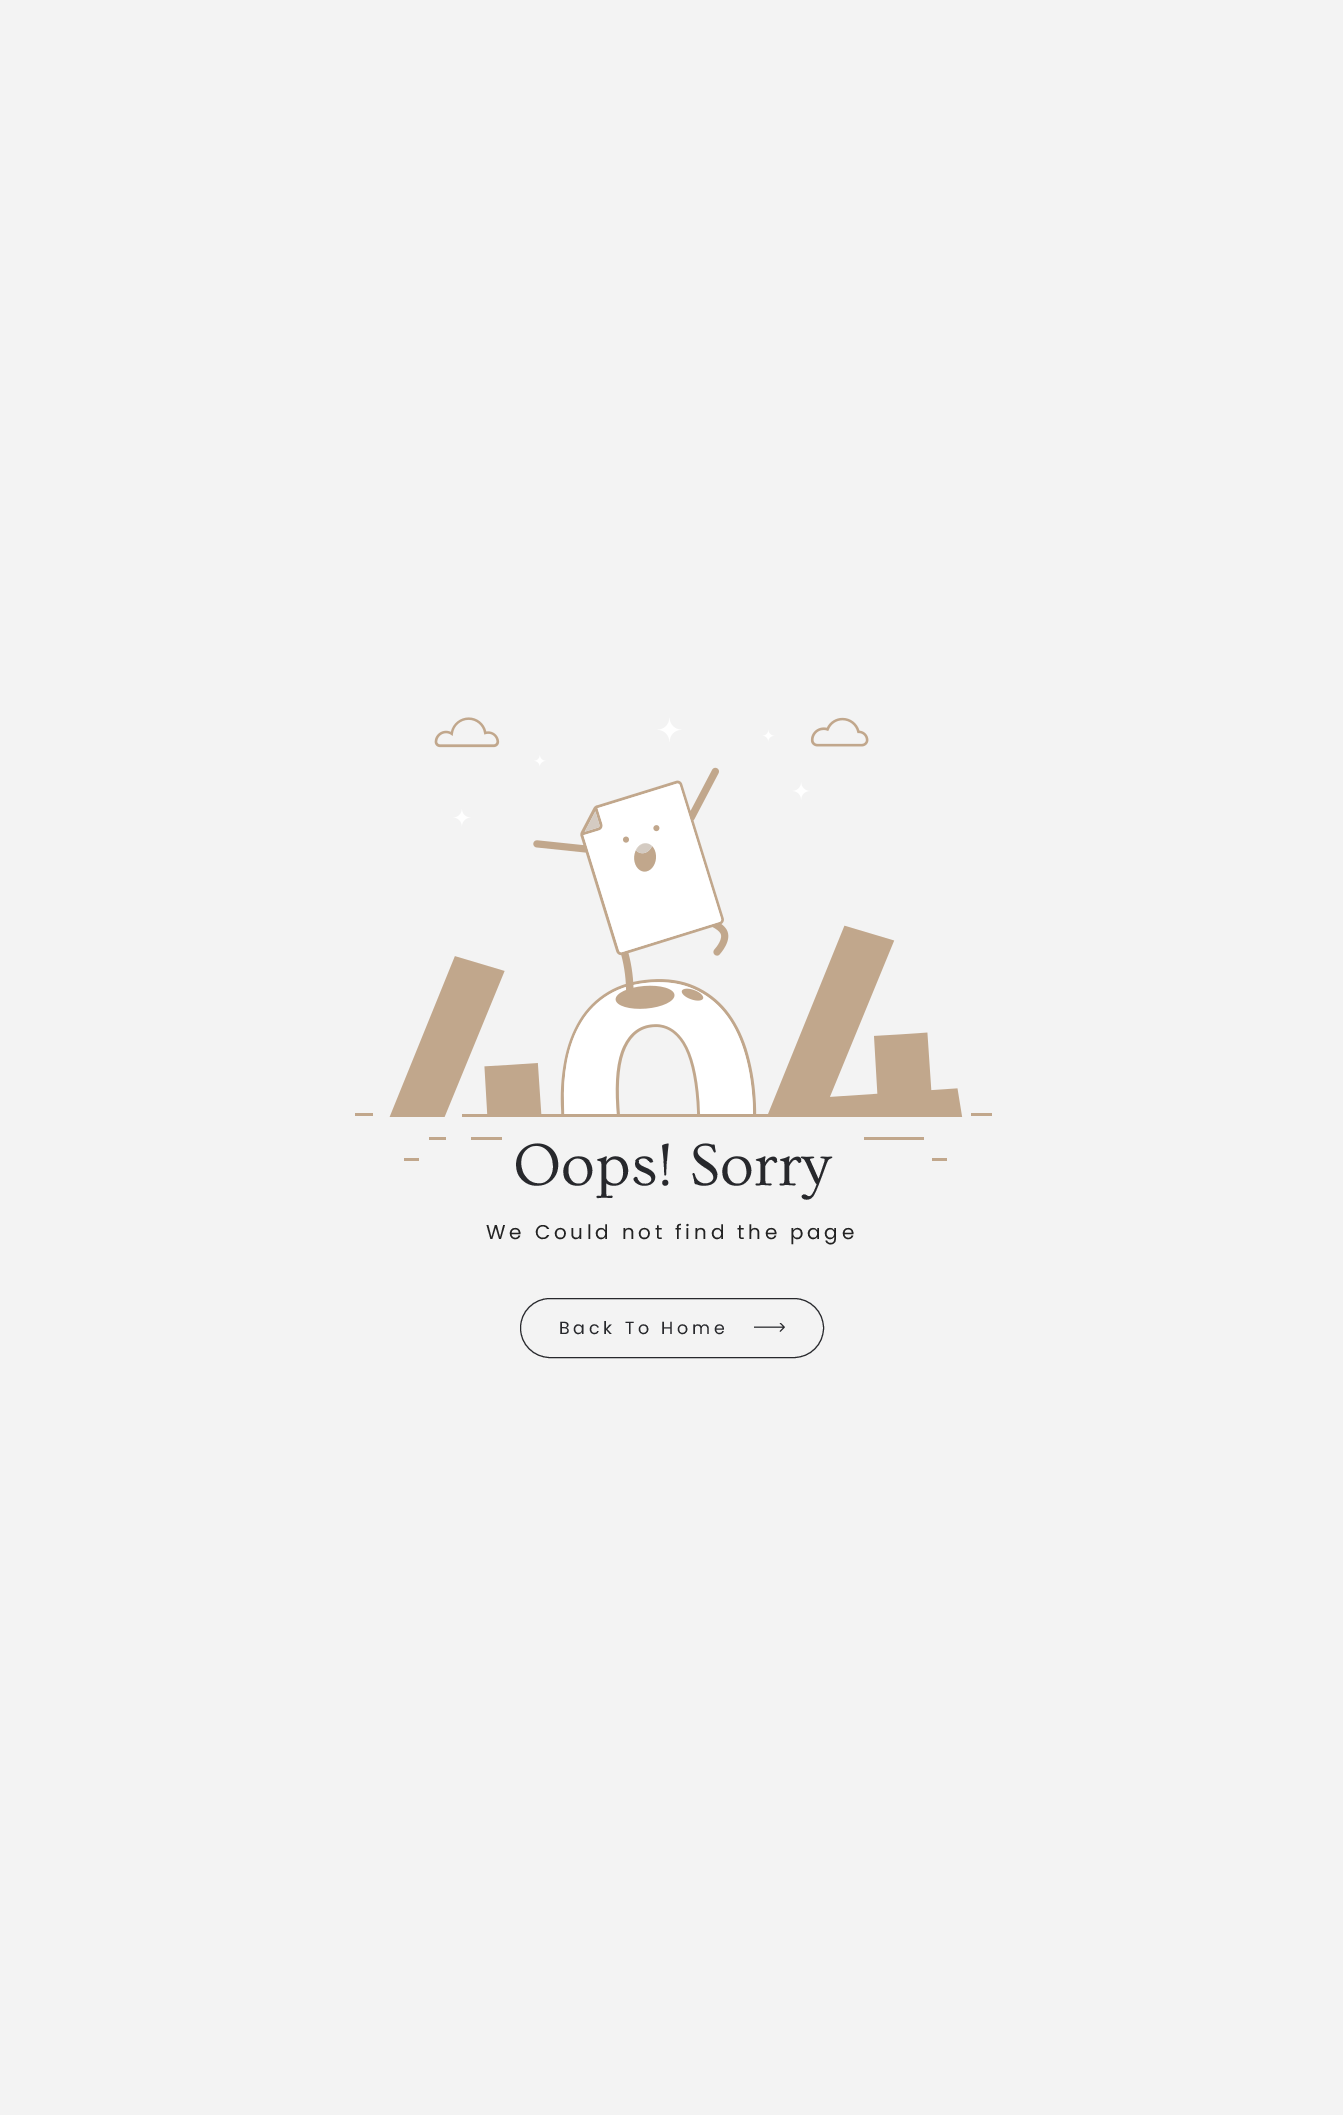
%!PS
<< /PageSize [1343 2115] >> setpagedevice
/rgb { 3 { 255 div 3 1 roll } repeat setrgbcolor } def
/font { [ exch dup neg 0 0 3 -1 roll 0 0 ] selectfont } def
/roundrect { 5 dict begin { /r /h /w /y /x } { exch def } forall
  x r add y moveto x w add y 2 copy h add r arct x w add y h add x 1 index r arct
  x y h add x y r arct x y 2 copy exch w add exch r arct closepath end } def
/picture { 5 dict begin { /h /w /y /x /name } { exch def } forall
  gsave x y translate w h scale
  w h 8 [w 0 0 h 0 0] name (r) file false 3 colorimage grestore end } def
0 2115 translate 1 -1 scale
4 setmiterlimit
243 243 243 rgb
0 0 1343 2115 rectfill
39 40 44 rgb
520.5 1298.5 303 59 29.5 roundrect stroke
(img/2.rgb) 754 1323 31 9 picture
/Ovo-Regular 62.5 font
513 1185 moveto (Oops! Sorry) show
(img/1.rgb) 355 717 637 444 picture
/Poppins-Regular 20 font
35 35 35 rgb
486 1239 moveto 3.75 0 (We Could not find the page) ashow
/Poppins-Regular 17.5 font
39 40 44 rgb
559 1334 moveto 3.75 0 (Back To Home) ashow
showpage
